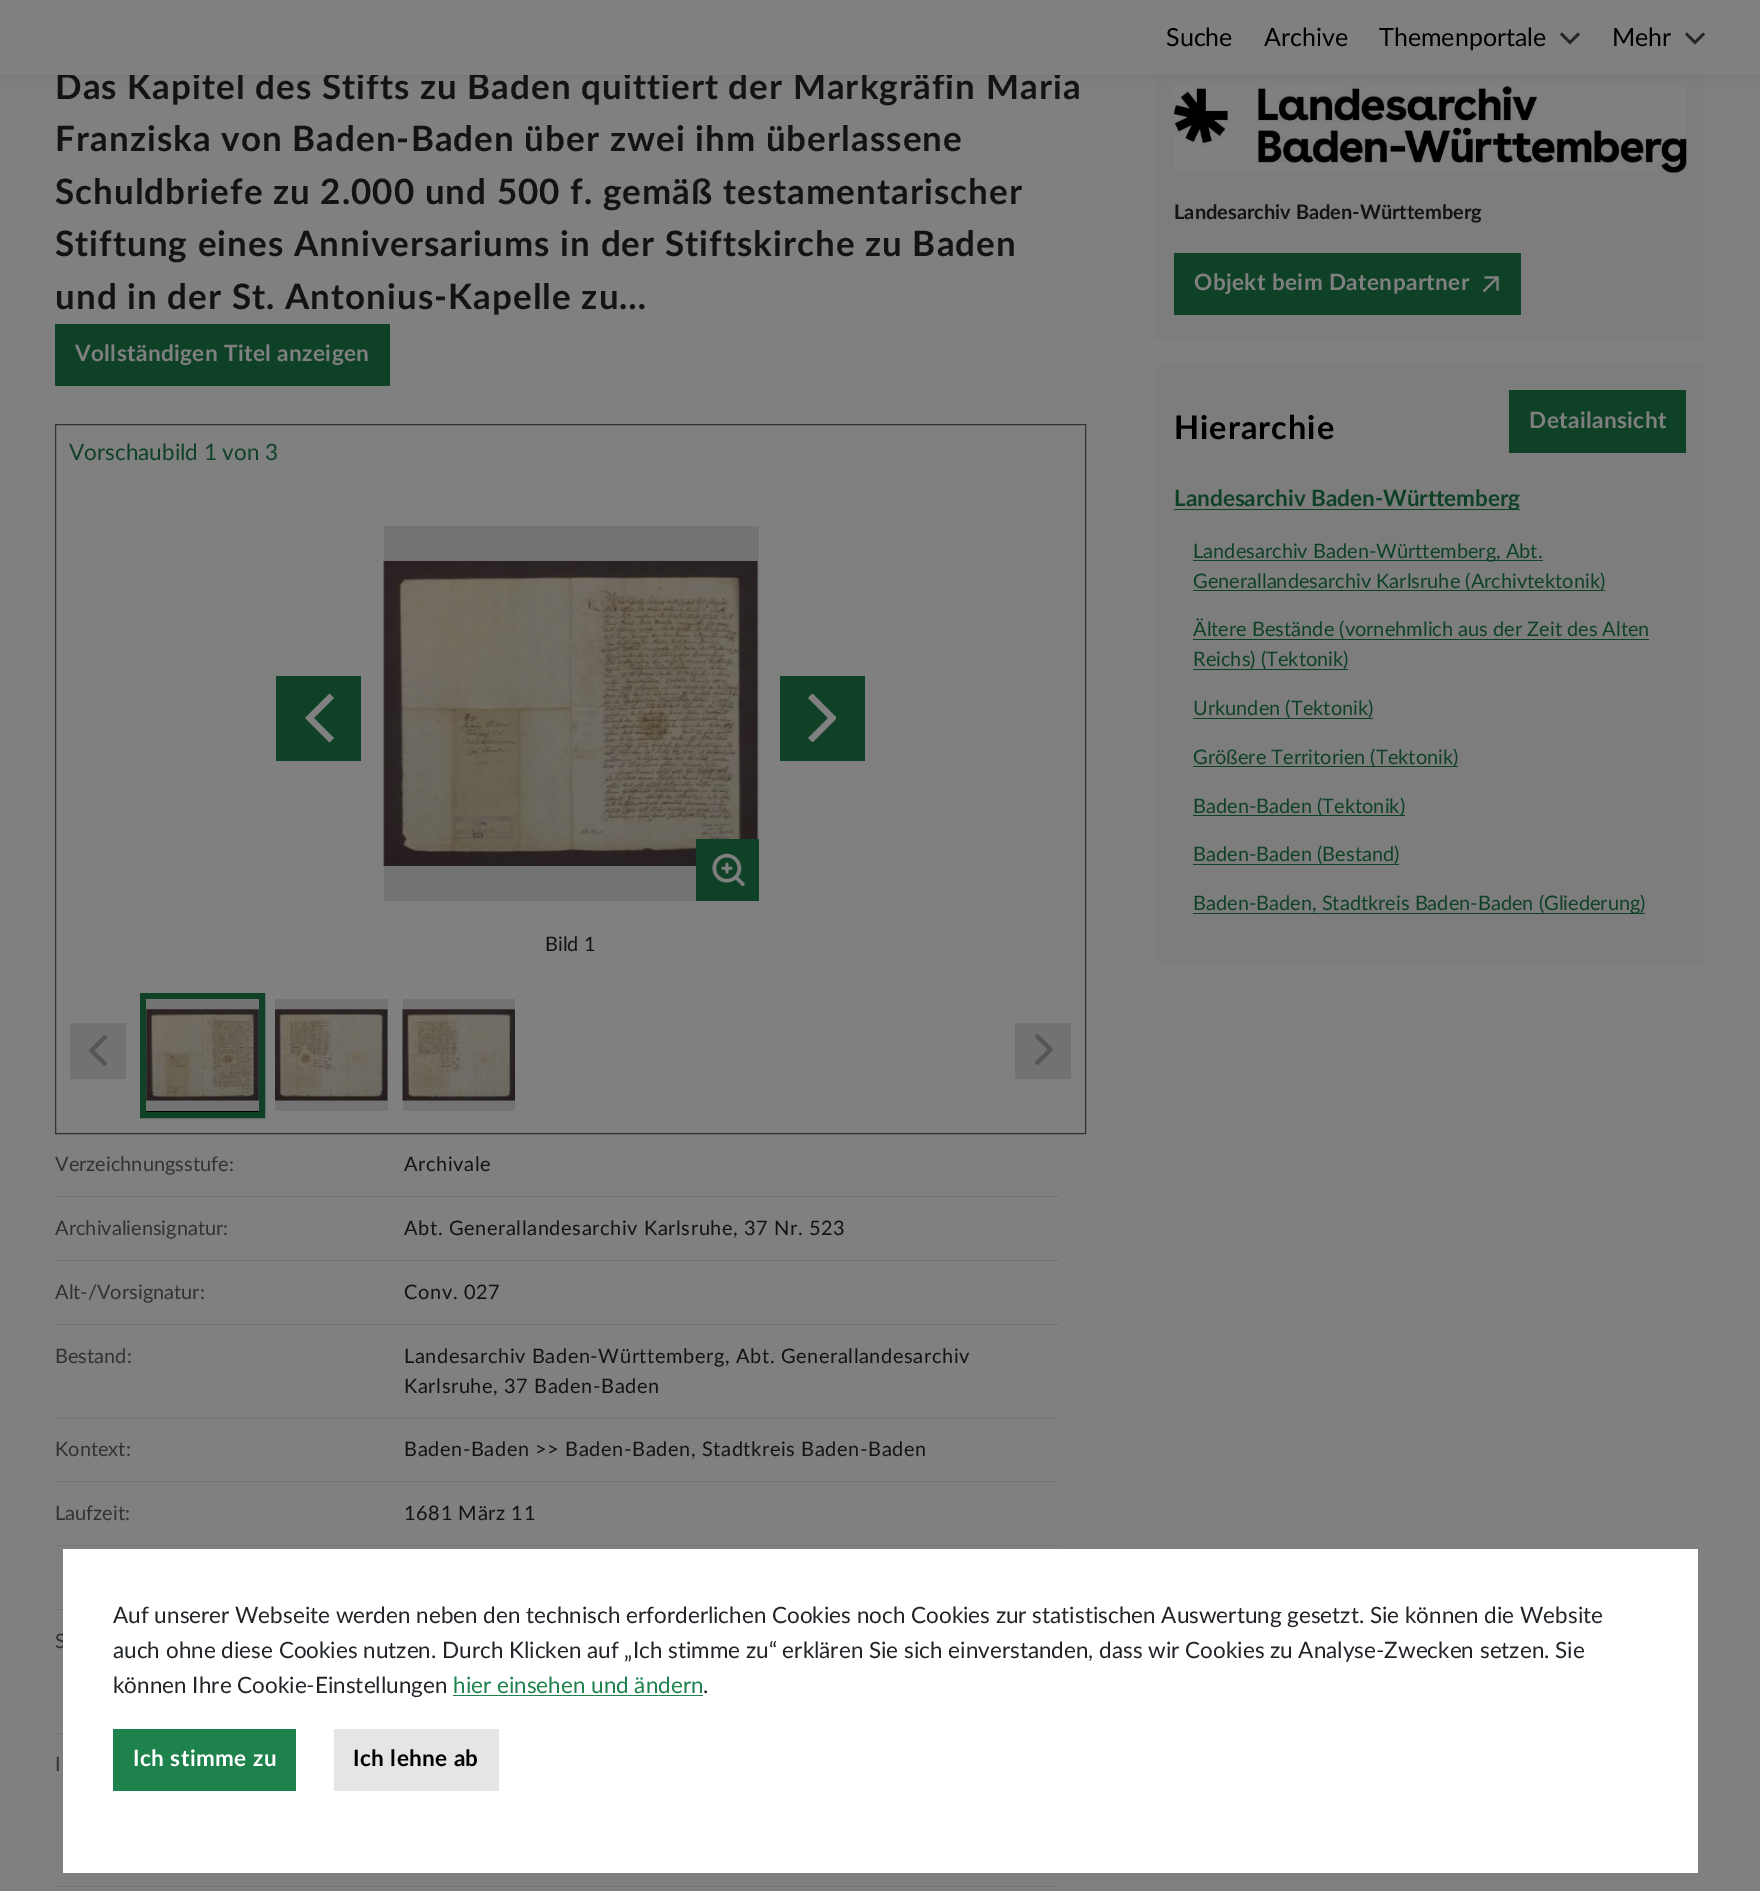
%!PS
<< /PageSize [1760 1891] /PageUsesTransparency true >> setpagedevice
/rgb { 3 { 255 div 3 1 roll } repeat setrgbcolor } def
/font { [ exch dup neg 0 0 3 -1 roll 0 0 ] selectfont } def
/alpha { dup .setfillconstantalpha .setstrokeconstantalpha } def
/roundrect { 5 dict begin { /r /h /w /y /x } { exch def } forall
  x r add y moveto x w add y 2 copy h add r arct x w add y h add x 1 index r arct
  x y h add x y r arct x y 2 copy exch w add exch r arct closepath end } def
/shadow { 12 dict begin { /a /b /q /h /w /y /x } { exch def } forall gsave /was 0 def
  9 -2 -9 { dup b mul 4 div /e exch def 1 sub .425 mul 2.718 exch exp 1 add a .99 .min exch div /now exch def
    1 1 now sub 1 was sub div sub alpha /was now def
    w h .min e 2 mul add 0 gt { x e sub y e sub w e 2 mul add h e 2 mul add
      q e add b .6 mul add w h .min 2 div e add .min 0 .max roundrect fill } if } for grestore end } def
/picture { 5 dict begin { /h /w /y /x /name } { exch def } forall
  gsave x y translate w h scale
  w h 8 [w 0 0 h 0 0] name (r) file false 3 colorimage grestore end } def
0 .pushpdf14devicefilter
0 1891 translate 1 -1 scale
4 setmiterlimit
128 128 128 rgb
0 0 1760 1891 rectfill
125 125 125 rgb
1155 75 550 265 rectfill
(img/6.rgb) 1173 86 514 87 picture
0 0 0 rgb
0 0 1760 75 0 5.5 0.14 shadow
15 65 38 rgb
55 324 335 62 rectfill
51 50 49 rgb
55.5 424.5 1030 709 rectstroke
15 65 38 rgb
276 676 85 85 rectfill
128 128 128 rgb
6.3 setlinewidth
2 setlinecap
329.5 698 moveto 309.5 718 lineto 329.5 738 lineto stroke
115 115 115 rgb
384 526 375 375 rectfill
(img/1.rgb) 383 560 375 306 picture
15 65 38 rgb
696 839 63 62 rectfill
(img/2.rgb) 712 853 34 33 picture
780 676 85 85 rectfill
gsave
808 694 28 48 rectclip
128 128 128 rgb
812.5 738 moveto 832.5 718 lineto 812.5 698 lineto stroke
grestore
115 114 114 rgb
70 1023 56 56 rectfill
gsave
89 1035 19 31 rectclip
86 86 86 rgb
4.1 setlinewidth
104.5 1037.5 moveto 91.5 1050.5 lineto 104.5 1063.5 lineto stroke
grestore
0 0 0 rgb
146 1111 113 1 rectfill
15 65 38 rgb
6 setlinewidth
0 setlinecap
143 996 119 119 rectstroke
115 115 115 rgb
146 999 113 112 rectfill
(img/3.rgb) 146 1009 113 92 picture
275 999 113 112 rectfill
(img/4.rgb) 275 1009 113 92 picture
403 999 112 112 rectfill
(img/5.rgb) 402 1009 113 92 picture
115 114 114 rgb
1015 1023 56 56 rectfill
gsave
1035 1034 18 31 rectclip
86 86 86 rgb
4.1 setlinewidth
2 setlinecap
1037.5 1062.5 moveto 1050.5 1049.5 lineto 1037.5 1036.5 lineto stroke
grestore
[
  [55 1196 1004 1 115 115 115]
  [55 1260 1004 1 115 115 115]
  [55 1324 1004 1 115 115 115]
  [55 1418 1004 1 115 115 115]
  [55 1481 1004 1 115 115 115]
  [55 1545 1004 1 115 115 115]
  [55 1609 8 1 115 115 115]
  [55 1733 8 1 115 115 115]
  [55 1886 1004 1 115 115 115]
  [1174 253 347 62 15 65 38]
] { aload pop rgb rectfill } forall
(img/7.rgb) 1483 276 16 17 picture
[
  [1155 365 550 598 125 125 125]
  [1509 390 177 63 15 65 38]
  [1174 509 346 1 15 65 38]
  [1193 560 350 1 15 65 38]
  [1193 590 412 1 15 65 38]
  [1193 639 456 1 15 65 38]
  [1193 669 155 1 15 65 38]
  [1193 718 180 1 15 65 38]
  [1193 766 265 1 15 65 38]
  [1193 815 212 1 15 65 38]
  [1193 864 206 1 15 65 38]
  [1193 913 452 1 15 65 38]
] { aload pop rgb rectfill } forall
/Lato-Bold 35 font
17 19 21 rgb
55 99 moveto 1.05 0 (Das Kapitel des Stifts zu Baden quittiert der Markgräfin Maria) ashow
128 128 128 rgb
0 0 1760 75 rectfill
37 37 37 rgb
2.6 setlinewidth
2 setlinecap
1687 34.5 moveto 1695 42.5 lineto 1703 34.5 lineto stroke
/Lato-Regular 25 font
0 0 0 rgb
1612 46 moveto (Mehr) show
37 37 37 rgb
1562 34.5 moveto 1570 42.5 lineto 1578 34.5 lineto stroke
0 0 0 rgb
[
  [(Themenportale) 1379 46]
  [(Archive) 1264 46]
  [(Suche) 1166 46]
] { aload pop moveto show } forall
/Lato-Bold 35 font
17 19 21 rgb
55 151 moveto 1.05 0 (Franziska von Baden-Baden über zwei ihm überlassene) ashow
55 204 moveto 1.05 0 (Schuldbriefe zu 2.000 und 500 f. gemäß testamentarischer) ashow
55 256 moveto 1.05 0 (Stiftung eines Anniversariums in der Stiftskirche zu Baden) ashow
55 309 moveto 1.05 0 (und in der St. Antonius-Kapelle zu…) ashow
/Lato-Bold 22.5 font
128 128 128 rgb
75 361 moveto 0.45 0 (Vollständigen Titel anzeigen) ashow
/Lato-Regular 22.5 font
15 65 38 rgb
69 460 moveto (Vorschaubild 1 von 3) show
/Lato-Regular 20 font
17 19 21 rgb
545 951 moveto (Bild 1) show
51 50 49 rgb
55 1171 moveto (Verzeichnungsstufe:) show
17 19 21 rgb
404 1171 moveto 0.6 0 (Archivale) ashow
51 50 49 rgb
55 1235 moveto (Archivaliensignatur:) show
17 19 21 rgb
404 1235 moveto 0.6 0 (Abt. Generallandesarchiv Karlsruhe, 37 Nr. 523) ashow
51 50 49 rgb
55 1299 moveto (Alt-/Vorsignatur:) show
17 19 21 rgb
404 1299 moveto 0.6 0 (Conv. 027) ashow
51 50 49 rgb
55 1363 moveto (Bestand:) show
17 19 21 rgb
404 1363 moveto 0.6 0 (Landesarchiv Baden-Württemberg, Abt. Generallandesarchiv) ashow
404 1393 moveto 0.6 0 (Karlsruhe, 37 Baden-Baden) ashow
51 50 49 rgb
55 1456 moveto (Kontext:) show
17 19 21 rgb
404 1456 moveto 0.6 0 (Baden-Baden >> Baden-Baden, Stadtkreis Baden-Baden) ashow
51 50 49 rgb
55 1520 moveto (Laufzeit:) show
17 19 21 rgb
404 1520 moveto 0.6 0 (1681 März 11) ashow
51 50 49 rgb
55 1648 moveto (S) show
55 1771 moveto (I) show
/Lato-Bold 20 font
17 19 21 rgb
1174 219 moveto (Landesarchiv Baden-Württemberg) show
/Lato-Bold 22.5 font
128 128 128 rgb
1194 290 moveto 0.45 0 (Objekt beim Datenpartner) ashow
/Lato-Bold 32.5 font
0 0 0 rgb
1174 439 moveto 1 0 (Hierarchie) ashow
/Lato-Bold 22.5 font
128 128 128 rgb
1529 428 moveto 0.45 0 (Detailansicht) ashow
15 65 38 rgb
1174 506 moveto (Landesarchiv Baden-Württemberg) show
/Lato-Regular 20 font
[
  [(Landesarchiv Baden-Württemberg, Abt.) 1193 558]
  [(Generallandesarchiv Karlsruhe \(Archivtektonik\)) 1193 588]
  [(Ältere Bestände \(vornehmlich aus der Zeit des Alten) 1193 636]
  [(Reichs\) \(Tektonik\)) 1193 666]
  [(Urkunden \(Tektonik\)) 1193 715]
  [(Größere Territorien \(Tektonik\)) 1193 764]
  [(Baden-Baden \(Tektonik\)) 1193 813]
  [(Baden-Baden \(Bestand\)) 1193 861]
  [(Baden-Baden, Stadtkreis Baden-Baden \(Gliederung\)) 1193 910]
] { aload pop moveto show } forall
255 255 255 rgb
63 1549 1635 324 rectfill
/Lato-Regular 22.5 font
33 37 41 rgb
[
  [(Auf unserer Webseite werden neben den technisch erforderlichen Cookies noch Cookies zur statistischen Auswertung gesetzt. Sie können die Website) 113 1623]
  [(auch ohne diese Cookies nutzen. Durch Klicken auf „Ich stimme zu“ erklären Sie sich einverstanden, dass wir Cookies zu Analyse-Zwecken setzen. Sie) 113 1658]
  [(können Ihre Cookie-Einstellungen) 113 1693]
] { aload pop moveto show } forall
30 130 76 rgb
453 1693 moveto (hier einsehen und ändern) show
453 1695 250 1 rectfill
33 37 41 rgb
703 1693 moveto (.) show
30 130 76 rgb
113 1729 183 62 rectfill
/Lato-Bold 22.5 font
255 255 255 rgb
133 1766 moveto 0.45 0 (Ich stimme zu) ashow
229 229 229 rgb
334 1729 165 62 rectfill
0 0 0 rgb
353 1766 moveto 0.45 0 (Ich lehne ab) ashow
.poppdf14devicefilter showpage
